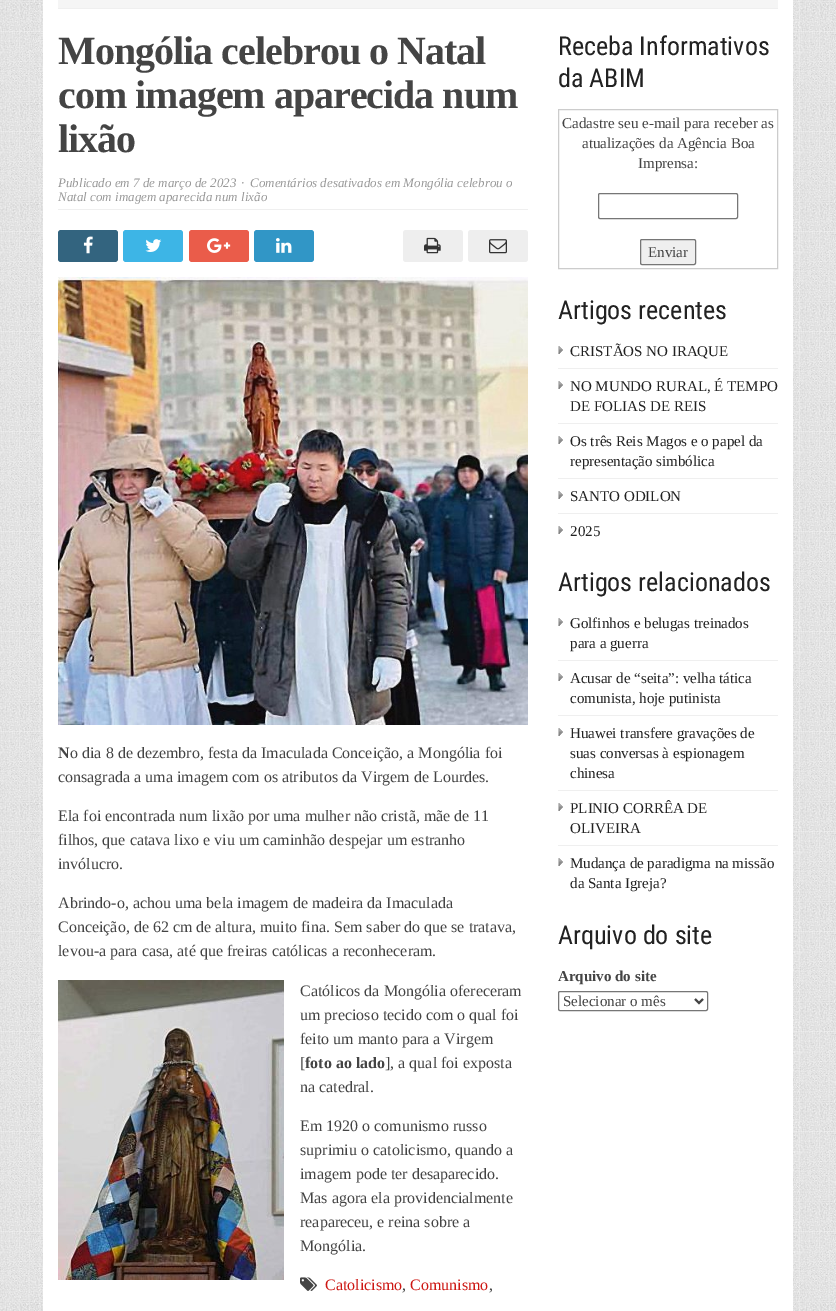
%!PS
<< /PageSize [836 1311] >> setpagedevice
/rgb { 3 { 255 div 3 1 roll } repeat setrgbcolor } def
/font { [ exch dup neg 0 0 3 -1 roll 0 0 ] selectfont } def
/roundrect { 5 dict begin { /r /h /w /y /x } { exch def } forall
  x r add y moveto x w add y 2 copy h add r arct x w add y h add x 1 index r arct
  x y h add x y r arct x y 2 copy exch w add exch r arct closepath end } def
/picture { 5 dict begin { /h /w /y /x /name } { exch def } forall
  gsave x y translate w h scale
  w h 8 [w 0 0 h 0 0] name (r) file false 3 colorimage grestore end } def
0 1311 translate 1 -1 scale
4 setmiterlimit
255 255 255 rgb
0 0 836 1311 rectfill
(img/1.rgb) 0 0 836 1311 picture
[
  [43 0 750 1311 255 255 255]
  [58 0 720 8 245 245 245]
  [58 8 720 1 239 239 239]
  [58 209 470 1 239 239 239]
] { aload pop rgb rectfill } forall
51 100 127 rgb
58 230 60 32 3 roundrect fill
(img/2.rgb) 83 236 10 18 picture
61 181 230 rgb
123 230 60 32 3 roundrect fill
(img/3.rgb) 145 239 17 13 picture
234 92 74 rgb
189 230 60 32 3 roundrect fill
(img/4.rgb) 207 238 24 15 picture
49 150 198 rgb
254 230 60 32 3 roundrect fill
(img/5.rgb) 276 238 16 15 picture
238 238 238 rgb
403 230 60 32 3 roundrect fill
(img/6.rgb) 424 237 17 17 picture
468 230 60 32 3 roundrect fill
(img/7.rgb) 489 239 18 15 picture
(img/8.rgb) 58 277 470 448 picture
(img/9.rgb) 58 980 226 300 picture
(img/10.rgb) 300 1277 17 14 picture
204 204 204 rgb
558.5 109.5 219 159 rectstroke
118 118 118 rgb
598.5 193.5 139 25 1.5 roundrect stroke
239 239 239 rgb
640.5 239.5 55 25 1.5 roundrect gsave fill grestore
118 118 118 rgb
stroke
(img/11.rgb) 558 346 5 8 picture
239 239 239 rgb
558 368 220 1 rectfill
(img/11.rgb) 558 381 5 8 picture
558 423 220 1 rectfill
(img/11.rgb) 558 436 5 8 picture
558 478 220 1 rectfill
(img/11.rgb) 558 491 5 8 picture
558 513 220 1 rectfill
(img/11.rgb) 558 526 5 8 picture
(img/11.rgb) 558 618 5 8 picture
558 660 220 1 rectfill
(img/11.rgb) 558 673 5 8 picture
558 715 220 1 rectfill
(img/11.rgb) 558 728 5 8 picture
558 790 220 1 rectfill
(img/11.rgb) 558 803 5 8 picture
558 845 220 1 rectfill
(img/11.rgb) 558 858 5 8 picture
118 118 118 rgb
558.5 991.5 149 19 1.5 roundrect stroke
68 68 68 rgb
2 setlinewidth
695 999 moveto 699 1003 lineto 703 999 lineto stroke
/LiberationSerif-Bold 40 font
58 64 moveto -1 0 (Mongólia celebrou o Natal) ashow
58 108 moveto -1 0 (com imagem aparecida num) ashow
58 152 moveto -1 0 (lixão) ashow
/LiberationSerif-Italic 13 font
153 153 153 rgb
[
  [(Publicado em 7 de março de 2023) 58 187]
  [(·) 241 187]
  [(Comentários desativados em Mongólia celebrou o) 250 187]
  [(Natal com imagem aparecida num lixão) 58 201]
] { aload pop moveto show } forall
/LiberationSerif-Bold 16 font
68 68 68 rgb
58 758 moveto (N) show
/LiberationSerif-Regular 16 font
[
  [(o dia 8 de dezembro, festa da Imaculada Conceição, a Mongólia foi) 70 758]
  [(consagrada a uma imagem com os atributos da Virgem de Lourdes.) 58 782]
  [(Ela foi encontrada num lixão por uma mulher não cristã, mãe de 11) 58 821]
  [(filhos, que catava lixo e viu um caminhão despejar um estranho) 58 845]
  [(invólucro.) 58 869]
  [(Abrindo-o, achou uma bela imagem de madeira da Imaculada) 58 908]
  [(Conceição, de 62 cm de altura, muito fina. Sem saber do que se tratava,) 58 932]
  [(levou-a para casa, até que freiras católicas a reconheceram.) 58 956]
  [(Católicos da Mongólia ofereceram) 300 996]
  [(um precioso tecido com o qual foi) 300 1020]
  [(feito um manto para a Virgem) 300 1044]
  [([) 300 1068]
] { aload pop moveto show } forall
/LiberationSerif-Bold 16 font
305 1068 moveto (foto ao lado) show
/LiberationSerif-Regular 16 font
[
  [(], a qual foi exposta) 385 1068]
  [(na catedral.) 300 1092]
  [(Em 1920 o comunismo russo) 300 1131]
  [(suprimiu o catolicismo, quando a) 300 1155]
  [(imagem pode ter desaparecido.) 300 1179]
  [(Mas agora ela providencialmente) 300 1203]
  [(reapareceu, e reina sobre a) 300 1227]
  [(Mongólia.) 300 1251]
] { aload pop moveto show } forall
205 23 19 rgb
325 1290 moveto (Catolicismo) show
68 68 68 rgb
402 1290 moveto (,) show
205 23 19 rgb
410 1290 moveto (Comunismo) show
68 68 68 rgb
489 1290 moveto (,) show
/RobotoCondensed-Regular 26 font
34 34 34 rgb
558 55 moveto (Receba Informativos) show
558 87 moveto (da ABIM) show
/LiberationSerif-Regular 15 font
68 68 68 rgb
[
  [(Cadastre seu e-mail para receber as) 562 128]
  [(atualizações da Agência Boa) 582 148]
  [(Imprensa:) 638 168]
  [(Enviar) 648 257]
] { aload pop moveto show } forall
/RobotoCondensed-Regular 26 font
34 34 34 rgb
558 319 moveto (Artigos recentes) show
/LiberationSerif-Regular 15 font
[
  [(CRISTÃOS NO IRAQUE) 570 356]
  [(NO MUNDO RURAL, É TEMPO) 570 391]
  [(DE FOLIAS DE REIS) 570 411]
  [(Os três Reis Magos e o papel da) 570 446]
  [(representação simbólica) 570 466]
  [(SANTO ODILON) 570 501]
  [(2025) 570 536]
] { aload pop moveto show } forall
/RobotoCondensed-Regular 26 font
558 591 moveto (Artigos relacionados) show
/LiberationSerif-Regular 15 font
[
  [(Golfinhos e belugas treinados) 570 628]
  [(para a guerra) 570 648]
  [(Acusar de “seita”: velha tática) 570 683]
  [(comunista, hoje putinista) 570 703]
  [(Huawei transfere gravações de) 570 738]
  [(suas conversas à espionagem) 570 758]
  [(chinesa) 570 778]
  [(PLINIO CORRÊA DE) 570 813]
  [(OLIVEIRA) 570 833]
  [(Mudança de paradigma na missão) 570 868]
  [(da Santa Igreja?) 570 888]
] { aload pop moveto show } forall
/RobotoCondensed-Regular 26 font
558 944 moveto (Arquivo do site) show
/LiberationSerif-Bold 15 font
68 68 68 rgb
558 981 moveto (Arquivo do site) show
/LiberationSerif-Regular 15 font
563 1006 moveto (Selecionar o mês) show
showpage
